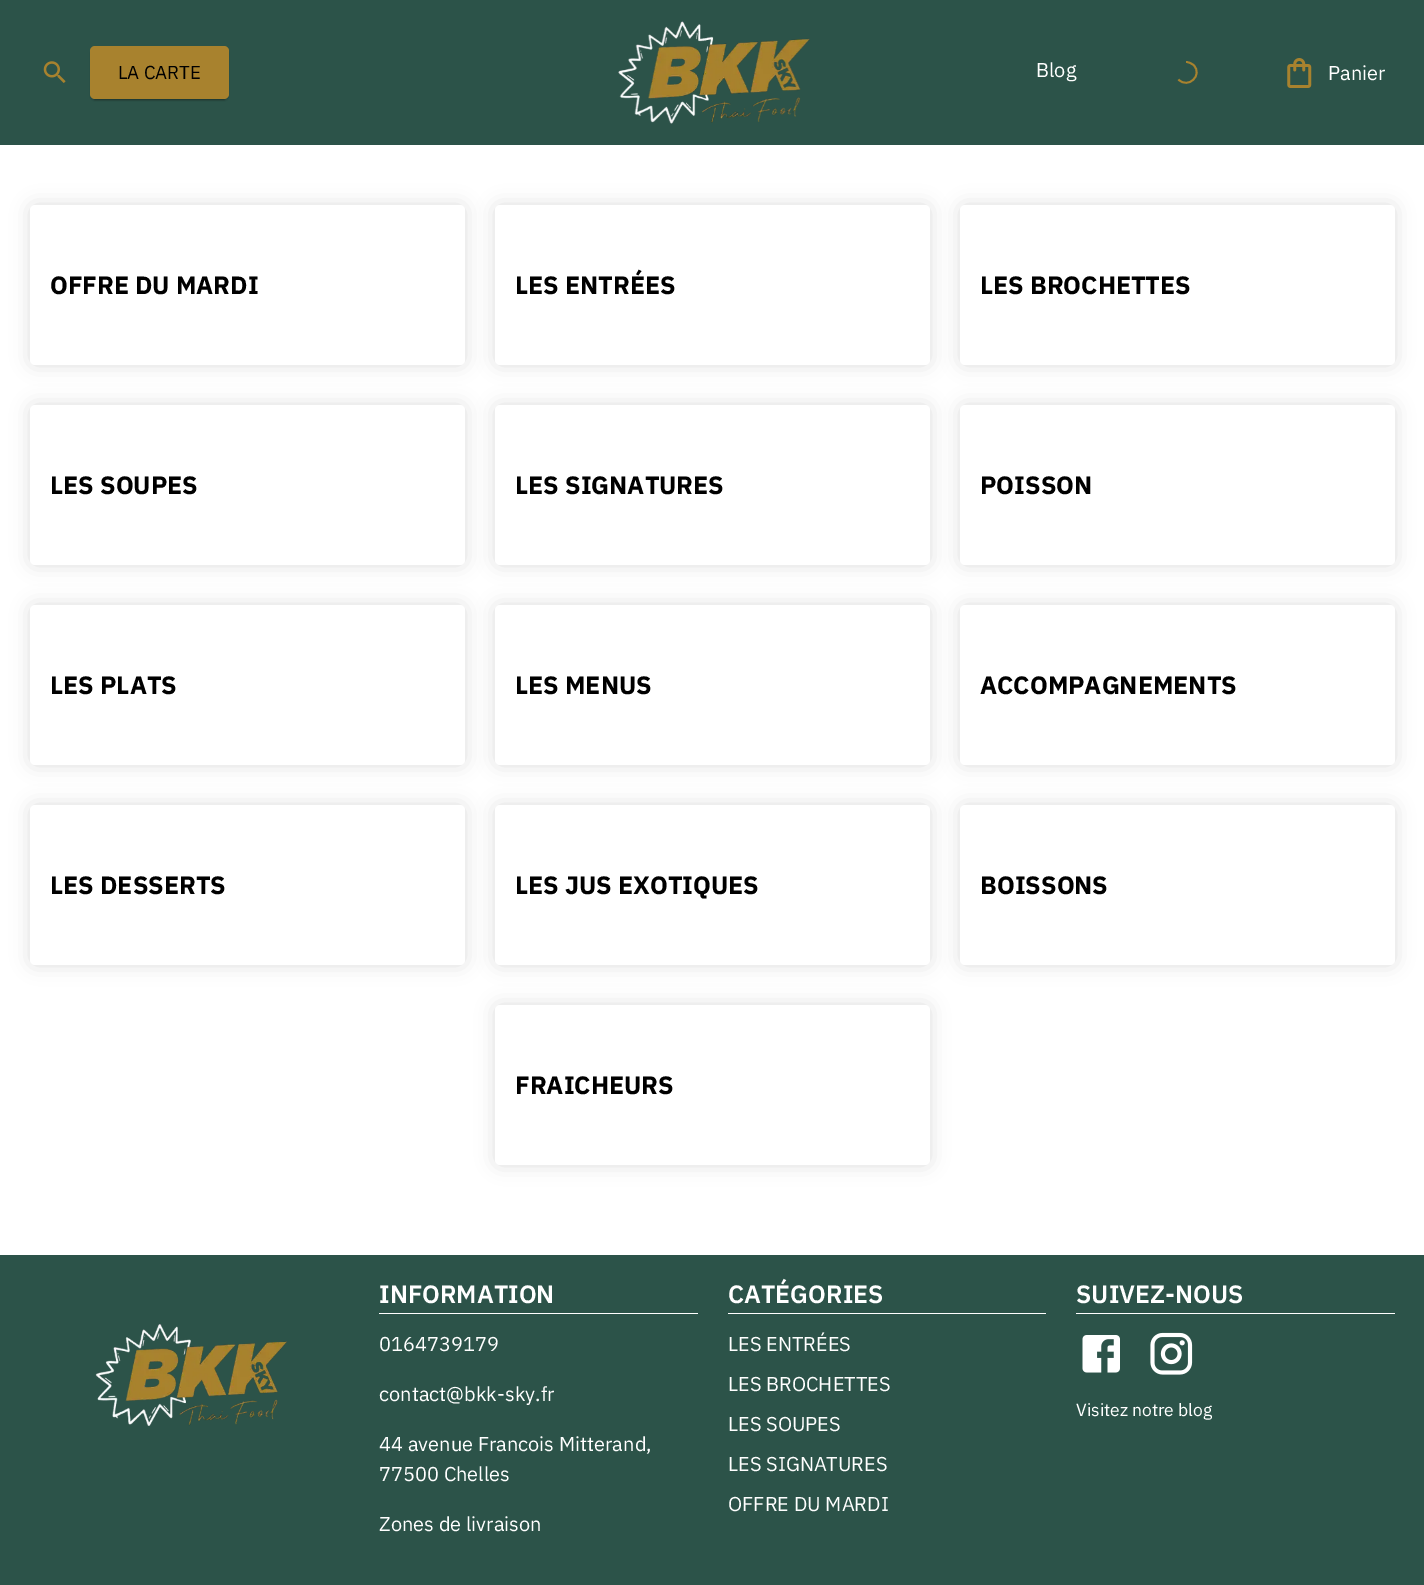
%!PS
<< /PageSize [1424 1585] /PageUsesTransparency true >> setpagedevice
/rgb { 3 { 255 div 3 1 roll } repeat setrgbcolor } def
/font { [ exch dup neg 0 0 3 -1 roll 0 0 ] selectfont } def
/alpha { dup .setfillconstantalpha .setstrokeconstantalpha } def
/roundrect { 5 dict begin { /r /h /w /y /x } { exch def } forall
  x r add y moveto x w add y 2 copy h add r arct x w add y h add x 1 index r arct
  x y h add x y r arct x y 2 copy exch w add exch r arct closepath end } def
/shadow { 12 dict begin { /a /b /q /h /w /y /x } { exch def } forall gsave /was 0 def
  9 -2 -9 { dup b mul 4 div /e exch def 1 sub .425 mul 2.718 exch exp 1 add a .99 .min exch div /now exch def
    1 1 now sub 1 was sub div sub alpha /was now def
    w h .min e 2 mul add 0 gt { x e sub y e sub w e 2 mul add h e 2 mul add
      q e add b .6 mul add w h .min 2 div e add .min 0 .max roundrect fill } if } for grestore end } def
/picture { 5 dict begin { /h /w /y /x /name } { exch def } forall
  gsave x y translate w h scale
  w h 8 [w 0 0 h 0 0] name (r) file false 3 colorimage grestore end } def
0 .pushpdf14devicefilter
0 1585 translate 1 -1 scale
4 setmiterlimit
255 255 255 rgb
0 0 1424 1585 rectfill
44 83 73 rgb
0 0 1424 145 rectfill
(img/1.rgb) 43 61 23 22 picture
0 0 0 rgb
90 49 139 52 5 1 0.14 shadow
93 53 133 47 2.5 0.5 0.2 shadow
168 130 46 rgb
90 46 139 53 5 roundrect fill
(img/2.rgb) 618 21 192 103 picture
1.8 setlinewidth
1186 62 moveto 1189 62 1191.5 63.5 1193.5 65 curveto 1203.5 75 1188 89.5 1178.5 79.5 curveto stroke
(img/3.rgb) 1287 58 25 30 picture
0 0 0 rgb
30 205 435 160 5 9.5 0.14 shadow
255 255 255 rgb
30 205 435 160 5 roundrect fill
0 0 0 rgb
495 205 435 160 5 9.5 0.14 shadow
255 255 255 rgb
495 205 435 160 5 roundrect fill
0 0 0 rgb
960 205 435 160 5 9.5 0.14 shadow
255 255 255 rgb
960 205 435 160 5 roundrect fill
0 0 0 rgb
30 405 435 160 5 9.5 0.14 shadow
255 255 255 rgb
30 405 435 160 5 roundrect fill
0 0 0 rgb
495 405 435 160 5 9.5 0.14 shadow
255 255 255 rgb
495 405 435 160 5 roundrect fill
0 0 0 rgb
960 405 435 160 5 9.5 0.14 shadow
255 255 255 rgb
960 405 435 160 5 roundrect fill
0 0 0 rgb
30 605 435 160 5 9.5 0.14 shadow
255 255 255 rgb
30 605 435 160 5 roundrect fill
0 0 0 rgb
495 605 435 160 5 9.5 0.14 shadow
255 255 255 rgb
495 605 435 160 5 roundrect fill
0 0 0 rgb
960 605 435 160 5 9.5 0.14 shadow
255 255 255 rgb
960 605 435 160 5 roundrect fill
0 0 0 rgb
30 805 435 160 5 9.5 0.14 shadow
255 255 255 rgb
30 805 435 160 5 roundrect fill
0 0 0 rgb
495 805 435 160 5 9.5 0.14 shadow
255 255 255 rgb
495 805 435 160 5 roundrect fill
0 0 0 rgb
960 805 435 160 5 9.5 0.14 shadow
255 255 255 rgb
960 805 435 160 5 roundrect fill
0 0 0 rgb
495 1005 435 160 5 9.5 0.14 shadow
255 255 255 rgb
495 1005 435 160 5 roundrect fill
44 83 73 rgb
0 1255 1424 330 rectfill
(img/4.rgb) 95 1324 192 102 picture
[
  [379 1313 319 1 255 255 255]
  [728 1313 318 1 255 255 255]
  [1076 1313 319 1 255 255 255]
] { aload pop rgb rectfill } forall
(img/5.rgb) 1082 1335 38 38 picture
(img/6.rgb) 1150 1332 43 43 picture
/IBMPlexSans-Regular 18.75 font
0 0 0 rgb
118 79 moveto (LA CARTE) show
/IBMPlexSans-Regular 20 font
255 255 255 rgb
1036 77 moveto (Blog) show
1328 80 moveto (Panier) show
/IBMPlexSans-Bold 25 font
0 0 0 rgb
[
  [(OFFRE DU MARDI) 50 294]
  [(LES ENTRÉES) 515 294]
  [(LES BROCHETTES) 980 294]
  [(LES SOUPES) 50 494]
  [(LES SIGNATURES) 515 494]
  [(POISSON) 980 494]
  [(LES PLATS) 50 694]
  [(LES MENUS) 515 694]
  [(ACCOMPAGNEMENTS) 980 694]
  [(LES DESSERTS) 50 894]
  [(LES JUS EXOTIQUES) 515 894]
  [(BOISSONS) 980 894]
  [(FRAICHEURS) 515 1094]
] { aload pop moveto show } forall
/IBMPlexSans-SemiBold 25 font
255 255 255 rgb
379 1303 moveto (INFORMATION) show
/IBMPlexSans-Regular 20 font
[
  [(0164739179) 379 1351]
  [(contact@bkk-sky.fr) 379 1401]
  [(44 avenue Francois Mitterand,) 379 1451]
  [(77500 Chelles) 379 1481]
  [(Zones de livraison) 379 1531]
] { aload pop moveto show } forall
/IBMPlexSans-SemiBold 25 font
728 1303 moveto (CATÉGORIES) show
/IBMPlexSans-Regular 20 font
[
  [(LES ENTRÉES) 728 1351]
  [(LES BROCHETTES) 728 1391]
  [(LES SOUPES) 728 1431]
  [(LES SIGNATURES) 728 1471]
  [(OFFRE DU MARDI) 728 1511]
] { aload pop moveto show } forall
/IBMPlexSans-SemiBold 25 font
1076 1303 moveto (SUIVEZ-NOUS) show
/IBMPlexSans-Regular 17.5 font
1076 1416 moveto (Visitez notre blog) show
.poppdf14devicefilter showpage
